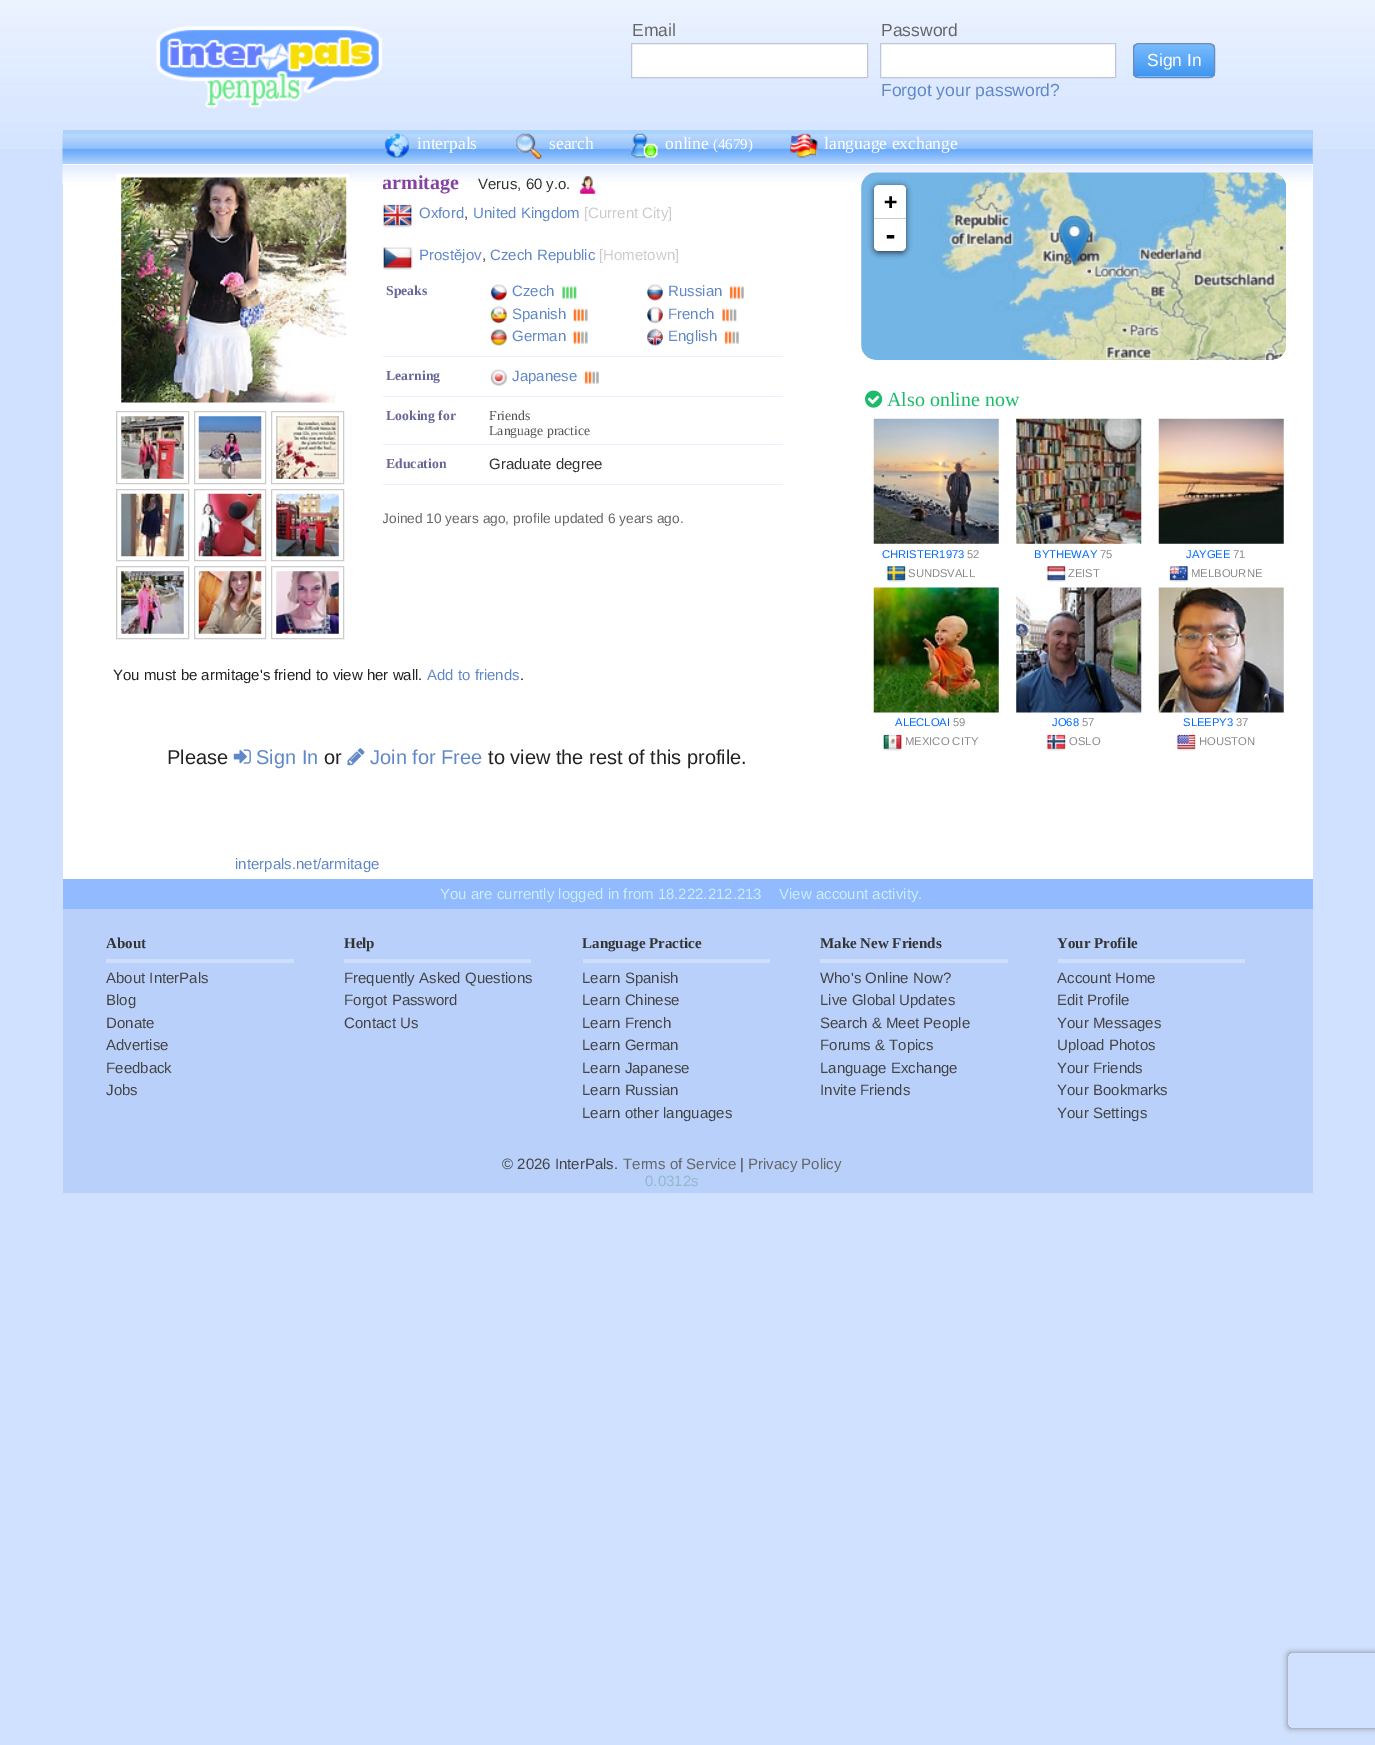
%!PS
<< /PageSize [1375 1745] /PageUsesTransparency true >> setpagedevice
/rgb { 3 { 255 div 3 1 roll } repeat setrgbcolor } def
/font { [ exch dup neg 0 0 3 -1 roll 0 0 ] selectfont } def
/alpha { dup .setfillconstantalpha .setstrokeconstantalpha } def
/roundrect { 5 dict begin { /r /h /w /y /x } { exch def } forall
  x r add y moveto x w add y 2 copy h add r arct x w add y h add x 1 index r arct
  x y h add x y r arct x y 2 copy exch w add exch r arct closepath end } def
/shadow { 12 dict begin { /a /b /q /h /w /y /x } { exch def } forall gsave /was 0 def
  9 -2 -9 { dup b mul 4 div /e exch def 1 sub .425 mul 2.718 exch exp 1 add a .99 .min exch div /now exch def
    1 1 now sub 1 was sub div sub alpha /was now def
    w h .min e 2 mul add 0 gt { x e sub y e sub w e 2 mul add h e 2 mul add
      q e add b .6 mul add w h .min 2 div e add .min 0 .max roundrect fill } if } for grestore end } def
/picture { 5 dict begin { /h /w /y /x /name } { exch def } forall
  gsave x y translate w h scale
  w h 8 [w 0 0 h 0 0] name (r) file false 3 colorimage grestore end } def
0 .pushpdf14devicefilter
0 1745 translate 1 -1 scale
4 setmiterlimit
208 225 255 rgb
0 0 1375 1745 rectfill
(img/1.rgb) 0 0 1375 149 picture
(img/2.rgb) 156 26 227 82 picture
255 255 255 rgb
631.5 43.5 moveto 867.5 43.5 lineto 867.5 77.5 lineto 631.5 77.5 lineto closepath gsave fill grestore
189 199 216 rgb
stroke
255 255 255 rgb
880.5 43.5 moveto 1115.5 43.5 lineto 1115.5 77.5 lineto 880.5 77.5 lineto closepath gsave fill grestore
189 199 216 rgb
stroke
gsave
1133 43 82 35 6 roundrect clip newpath
gsave 1133 44 moveto 1215 44 lineto 1215 76 lineto 1133 76 lineto closepath clip newpath
<< /ShadingType 2 /ColorSpace /DeviceRGB /Coords [1174 44 1174 76] /Extend [true true] /Function << /FunctionType 3 /Domain [0 1] /Functions [<< /FunctionType 2 /Domain [0 1] /C0 [0.478 0.737 1] /C1 [0.376 0.671 0.973] /N 1 >> << /FunctionType 2 /Domain [0 1] /C0 [0.376 0.671 0.973] /C1 [0.251 0.588 0.933] /N 1 >>] /Bounds [0.44] /Encode [0 1 0 1] >> >> shfill grestore
gsave 1133 76 moveto 1215 76 lineto 1215 78 lineto 1133 78 lineto closepath clip newpath
<< /ShadingType 2 /ColorSpace /DeviceRGB /Coords [1174 76 1174 109] /Extend [true true] /Function << /FunctionType 3 /Domain [0 1] /Functions [<< /FunctionType 2 /Domain [0 1] /C0 [0.478 0.737 1] /C1 [0.376 0.671 0.973] /N 1 >> << /FunctionType 2 /Domain [0 1] /C0 [0.376 0.671 0.973] /C1 [0.251 0.588 0.933] /N 1 >>] /Bounds [0.44] /Encode [0 1 0 1] >> >> shfill grestore
grestore
110 137 188 rgb
1133.5 43.5 81 34 5.5 roundrect stroke
169 210 255 rgb
63 130 1250 34 rectfill
(img/3.rgb) 62 134 1251 30 picture
255 255 255 rgb
63 164 1250 715 rectfill
(img/4.rgb) 384 133 25 25 picture
(img/5.rgb) 516 133 26 26 picture
(img/6.rgb) 631 133 27 25 picture
(img/7.rgb) 790 133 28 25 picture
(img/8.rgb) 62 165 1251 19 picture
116 174 233 8 rectfill
(img/9.rgb) 121 177 226 226 picture
204 204 204 rgb
116.5 411.5 72 72 rectstroke
(img/10.rgb) 121 416 63 63 picture
194.5 411.5 71 72 rectstroke
(img/11.rgb) 198 416 64 63 picture
271.5 411.5 72 72 rectstroke
(img/12.rgb) 276 416 63 63 picture
116.5 489.5 72 71 rectstroke
(img/13.rgb) 121 493 63 64 picture
194.5 489.5 71 71 rectstroke
(img/14.rgb) 198 493 64 64 picture
271.5 489.5 72 71 rectstroke
(img/15.rgb) 276 493 63 64 picture
116.5 566.5 72 72 rectstroke
(img/16.rgb) 121 571 63 63 picture
194.5 566.5 71 72 rectstroke
(img/17.rgb) 198 571 64 63 picture
271.5 566.5 72 72 rectstroke
(img/18.rgb) 276 571 63 63 picture
(img/19.rgb) 579 176 17 18 picture
(img/20.rgb) 383 204 30 24 picture
(img/21.rgb) 383 247 30 23 picture
238 238 255 rgb
383 356 400 1 rectfill
(img/22.rgb) 490 284 17 17 picture
(img/23.rgb) 562 286 15 13 picture
(img/24.rgb) 647 284 16 17 picture
(img/25.rgb) 729 286 15 13 picture
(img/26.rgb) 490 306 18 18 picture
(img/27.rgb) 573 308 15 14 picture
(img/28.rgb) 647 307 16 16 picture
(img/29.rgb) 722 308 15 14 picture
(img/30.rgb) 490 329 17 17 picture
(img/31.rgb) 573 331 15 13 picture
(img/32.rgb) 647 328 16 18 picture
(img/33.rgb) 724 331 15 13 picture
383 396 400 1 rectfill
(img/34.rgb) 490 369 17 17 picture
(img/33.rgb) 584 371 15 13 picture
383 444 400 1 rectfill
383 484 400 1 rectfill
(img/35.rgb) 233 749 18 15 picture
(img/36.rgb) 347 748 18 18 picture
(img/37.rgb) 861 173 425 187 picture
(img/38.rgb) 861 172 230 188 picture
(img/39.rgb) 1091 172 195 188 picture
(img/41.rgb) 1070 231 37 36 picture
(img/40.rgb) 1058 215 33 52 picture
0 0 0 rgb
874 186 32 67 5 3 0.65 shadow
255 255 255 rgb
879 185 moveto 901 185 lineto 904 185 906 187 906 190 curveto 906 219 lineto 874 219 lineto 874 190 lineto 874 187 876 185 879 185 curveto closepath fill
204 204 204 rgb
874 218 32 1 rectfill
255 255 255 rgb
874 219 moveto 906 219 lineto 906 246 lineto 906 249 904 251 901 251 curveto 879 251 lineto 876 251 874 249 874 246 curveto closepath fill
(img/42.rgb) 865 390 18 18 picture
(img/43.rgb) 873 418 126 126 picture
(img/44.rgb) 886 566 20 16 picture
(img/45.rgb) 1016 418 126 126 picture
(img/46.rgb) 1046 566 20 16 picture
(img/47.rgb) 1158 418 126 126 picture
(img/48.rgb) 1169 566 20 16 picture
(img/49.rgb) 873 587 126 126 picture
(img/50.rgb) 883 734 19 17 picture
(img/51.rgb) 1016 587 126 126 picture
(img/52.rgb) 1046 734 20 17 picture
(img/53.rgb) 1158 587 126 126 picture
(img/54.rgb) 1176 734 20 17 picture
[
  [63 879 1250 30 146 186 255]
  [63 909 1250 284 184 208 250]
  [106 959 188 4 206 222 251]
  [344 959 187 4 206 222 251]
  [583 959 187 4 206 222 251]
  [820 959 188 4 206 222 251]
  [1058 959 187 4 206 222 251]
] { aload pop rgb rectfill } forall
gsave
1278 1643 moveto 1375 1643 lineto 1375 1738 lineto 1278 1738 lineto closepath 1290.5 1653 moveto 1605.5 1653 lineto 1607 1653 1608 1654 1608 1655.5 curveto 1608 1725.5 lineto 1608 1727 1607 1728 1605.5 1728 curveto 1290.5 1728 lineto 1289 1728 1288 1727 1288 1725.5 curveto 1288 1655.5 lineto 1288 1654 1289 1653 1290.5 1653 curveto closepath eoclip newpath
128 128 128 rgb
1288 1653 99 75 2.5 3 1 shadow
grestore
/LiberationSans-Regular 17.5 font
102 102 102 rgb
632 36 moveto (Email) show
881 36 moveto (Password) show
96 136 200 rgb
881 96 moveto (Forgot your password?) show
255 255 255 rgb
1147 66 moveto (Sign In) show
/LiberationSerif-Regular 17.5 font
[
  [(interpals) 417 149]
  [(search) 549 149]
  [(online) 665 149]
] { aload pop moveto show } forall
/LiberationSerif-Regular 15 font
713 149 moveto (\(4679\)) show
/LiberationSerif-Regular 17.5 font
824 149 moveto (language exchange) show
gsave
383 171 400 362 rectclip
/LiberationSerif-Bold 20 font
132 66 162 rgb
382 189 moveto (armitage) show
grestore
/LiberationSans-Regular 15 font
51 51 51 rgb
478 189 moveto (Verus, 60 y.o.) show
96 136 200 rgb
419 218 moveto (Oxford) show
51 51 51 rgb
464 218 moveto (,) show
96 136 200 rgb
473 218 moveto (United Kingdom) show
204 204 204 rgb
584 218 moveto ([Current City]) show
96 136 200 rgb
419 260 moveto (Prostějov) show
51 51 51 rgb
482 260 moveto (,) show
96 136 200 rgb
490 260 moveto (Czech Republic) show
204 204 204 rgb
599 260 moveto ([Hometown]) show
/LiberationSerif-Bold 13.75 font
102 102 153 rgb
386 295 moveto (Speaks) show
/LiberationSans-Regular 15 font
96 136 200 rgb
[
  [(Czech) 512 296]
  [(Russian) 668 296]
  [(Spanish) 512 319]
  [(French) 668 319]
  [(German) 512 341]
  [(English) 668 341]
] { aload pop moveto show } forall
/LiberationSerif-Bold 13.75 font
102 102 153 rgb
386 380 moveto (Learning) show
/LiberationSans-Regular 15 font
96 136 200 rgb
512 381 moveto (Japanese) show
/LiberationSerif-Bold 13.75 font
102 102 153 rgb
386 420 moveto (Looking for) show
/LiberationSerif-Regular 13.75 font
85 85 85 rgb
489 420 moveto (Friends) show
489 435 moveto (Language practice) show
/LiberationSerif-Bold 13.75 font
102 102 153 rgb
386 468 moveto (Education) show
/LiberationSans-Regular 15 font
51 51 51 rgb
489 469 moveto (Graduate degree) show
gsave
383 171 400 362 rectclip
/LiberationSans-Regular 13.75 font
102 102 102 rgb
382 523 moveto (Joined) show
grestore
/LiberationSans-Regular 13.75 font
102 102 102 rgb
426 523 moveto (10 years ago, profile updated 6 years ago.) show
/LiberationSans-Regular 15 font
34 34 34 rgb
113 680 moveto (You must be armitage's friend to view her wall.) show
96 136 200 rgb
427 680 moveto (Add to friends) show
34 34 34 rgb
520 680 moveto (.) show
/LiberationSans-Regular 20 font
167 764 moveto (Please) show
96 136 200 rgb
256 764 moveto (Sign In) show
34 34 34 rgb
324 764 moveto (or) show
96 136 200 rgb
370 764 moveto (Join for Free) show
34 34 34 rgb
488 764 moveto (to view the rest of this profile.) show
/LiberationSans-Regular 15 font
96 136 200 rgb
235 869 moveto (interpals.net/armitage) show
/DejaVuSansMono-Bold 22 font
0 0 0 rgb
884 209 moveto (+) show
/DejaVuSansMono-Bold 25 font
883 244 moveto (-) show
/LiberationSerif-Regular 20 font
27 187 105 rgb
887 406 moveto (Also online now) show
/LiberationSans-Regular 11.25 font
0 106 255 rgb
882 558 moveto (CHRISTER1973) show
136 136 136 rgb
967 558 moveto (52) show
908 577 moveto (SUNDSVALL) show
0 106 255 rgb
1034 558 moveto (BYTHEWAY) show
136 136 136 rgb
1100 558 moveto (75) show
1068 577 moveto (ZEIST) show
0 106 255 rgb
1186 558 moveto (JAYGEE) show
136 136 136 rgb
1233 558 moveto (71) show
1191 577 moveto (MELBOURNE) show
0 106 255 rgb
895 726 moveto (ALECLOAI) show
136 136 136 rgb
953 726 moveto (59) show
905 745 moveto (MEXICO CITY) show
0 106 255 rgb
1052 726 moveto (JO68) show
136 136 136 rgb
1082 726 moveto (57) show
1069 745 moveto (OSLO) show
0 106 255 rgb
1183 726 moveto (SLEEPY3) show
136 136 136 rgb
1236 726 moveto (37) show
1199 745 moveto (HOUSTON) show
/LiberationSans-Regular 15 font
203 237 252 rgb
440 899 moveto (You are currently logged in from 18.222.212.213) show
779 899 moveto (View account activity.) show
/LiberationSerif-Bold 15 font
51 51 51 rgb
106 948 moveto (About) show
/LiberationSans-Regular 15 font
68 68 68 rgb
[
  [(About InterPals) 106 983]
  [(Blog) 106 1005]
  [(Donate) 106 1028]
  [(Advertise) 106 1050]
  [(Feedback) 106 1073]
  [(Jobs) 106 1095]
] { aload pop moveto show } forall
/LiberationSerif-Bold 15 font
51 51 51 rgb
344 948 moveto (Help) show
/LiberationSans-Regular 15 font
68 68 68 rgb
[
  [(Frequently Asked Questions) 344 983]
  [(Forgot Password) 344 1005]
  [(Contact Us) 344 1028]
] { aload pop moveto show } forall
/LiberationSerif-Bold 15 font
51 51 51 rgb
582 948 moveto (Language Practice) show
/LiberationSans-Regular 15 font
68 68 68 rgb
[
  [(Learn Spanish) 582 983]
  [(Learn Chinese) 582 1005]
  [(Learn French) 582 1028]
  [(Learn German) 582 1050]
  [(Learn Japanese) 582 1073]
  [(Learn Russian) 582 1095]
  [(Learn other languages) 582 1118]
] { aload pop moveto show } forall
/LiberationSerif-Bold 15 font
51 51 51 rgb
820 948 moveto (Make New Friends) show
/LiberationSans-Regular 15 font
68 68 68 rgb
[
  [(Who's Online Now?) 820 983]
  [(Live Global Updates) 820 1005]
  [(Search & Meet People) 820 1028]
  [(Forums & Topics) 820 1050]
  [(Language Exchange) 820 1073]
  [(Invite Friends) 820 1095]
] { aload pop moveto show } forall
/LiberationSerif-Bold 15 font
51 51 51 rgb
1057 948 moveto (Your Profile) show
/LiberationSans-Regular 15 font
68 68 68 rgb
[
  [(Account Home) 1057 983]
  [(Edit Profile) 1057 1005]
  [(Your Messages) 1057 1028]
  [(Upload Photos) 1057 1050]
  [(Your Friends) 1057 1073]
  [(Your Bookmarks) 1057 1095]
  [(Your Settings) 1057 1118]
  [(© 2026 InterPals.) 502 1169]
] { aload pop moveto show } forall
102 102 102 rgb
623 1169 moveto (Terms of Service) show
68 68 68 rgb
740 1169 moveto (|) show
102 102 102 rgb
748 1169 moveto (Privacy Policy) show
144 185 204 rgb
645 1186 moveto (0.0312s) show
.poppdf14devicefilter showpage
